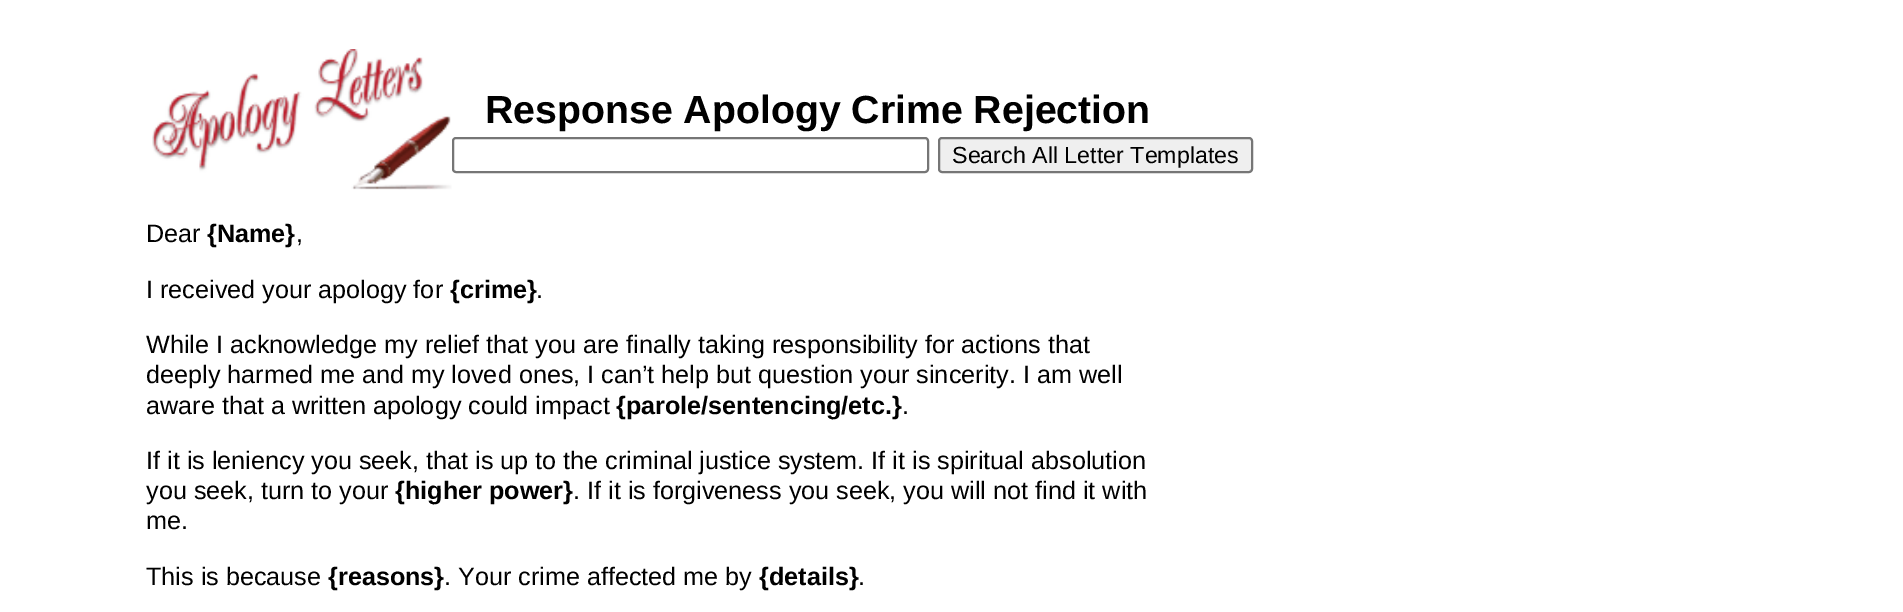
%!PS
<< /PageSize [1903 612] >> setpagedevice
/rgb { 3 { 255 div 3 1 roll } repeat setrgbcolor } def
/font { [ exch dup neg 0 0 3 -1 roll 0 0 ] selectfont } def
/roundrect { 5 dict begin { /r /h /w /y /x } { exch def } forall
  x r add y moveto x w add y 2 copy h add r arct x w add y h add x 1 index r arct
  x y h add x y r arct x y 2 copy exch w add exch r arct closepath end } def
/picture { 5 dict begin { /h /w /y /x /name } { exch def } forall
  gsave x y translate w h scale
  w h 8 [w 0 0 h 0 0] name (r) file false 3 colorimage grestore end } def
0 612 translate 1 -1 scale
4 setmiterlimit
255 255 255 rgb
0 0 1903 612 rectfill
(img/1.rgb) 152 49 300 141 picture
118 118 118 rgb
2 setlinewidth
453 138 475 34 3 roundrect stroke
239 239 239 rgb
939 138 313 34 3 roundrect gsave fill grestore
118 118 118 rgb
stroke
/LiberationSans-Bold 39.25 font
0 0 0 rgb
485 123 moveto (Response Apology Crime Rejection) show
/LiberationSans-Regular 23.25 font
952 163 moveto (Search All Letter Templates) show
/LiberationSans-Regular 25.2 font
146 242 moveto (Dear) show
/LiberationSans-Bold 25.2 font
207 242 moveto ({Name}) show
/LiberationSans-Regular 25.2 font
296 242 moveto (,) show
146 298 moveto (I received your apology for) show
/LiberationSans-Bold 25.2 font
450 298 moveto ({crime}) show
/LiberationSans-Regular 25.2 font
[
  [(.) 536 298]
  [(While I acknowledge my relief that you are finally taking responsibility for actions that) 146 353]
  [(deeply harmed me and my loved ones, I can’t help but question your sincerity. I am well) 146 383]
  [(aware that a written apology could impact) 146 414]
] { aload pop moveto show } forall
/LiberationSans-Bold 25.2 font
616 414 moveto ({parole/sentencing/etc.}) show
/LiberationSans-Regular 25.2 font
[
  [(.) 902 414]
  [(If it is leniency you seek, that is up to the criminal justice system. If it is spiritual absolution) 146 469]
  [(you seek, turn to your) 146 499]
] { aload pop moveto show } forall
/LiberationSans-Bold 25.2 font
395 499 moveto ({higher power}) show
/LiberationSans-Regular 25.2 font
[
  [(. If it is forgiveness you seek, you will not find it with) 573 499]
  [(me.) 146 529]
  [(This is because) 146 585]
] { aload pop moveto show } forall
/LiberationSans-Bold 25.2 font
328 585 moveto ({reasons}) show
/LiberationSans-Regular 25.2 font
444 585 moveto (. Your crime affected me by) show
/LiberationSans-Bold 25.2 font
759 585 moveto ({details}) show
/LiberationSans-Regular 25.2 font
858 585 moveto (.) show
showpage
